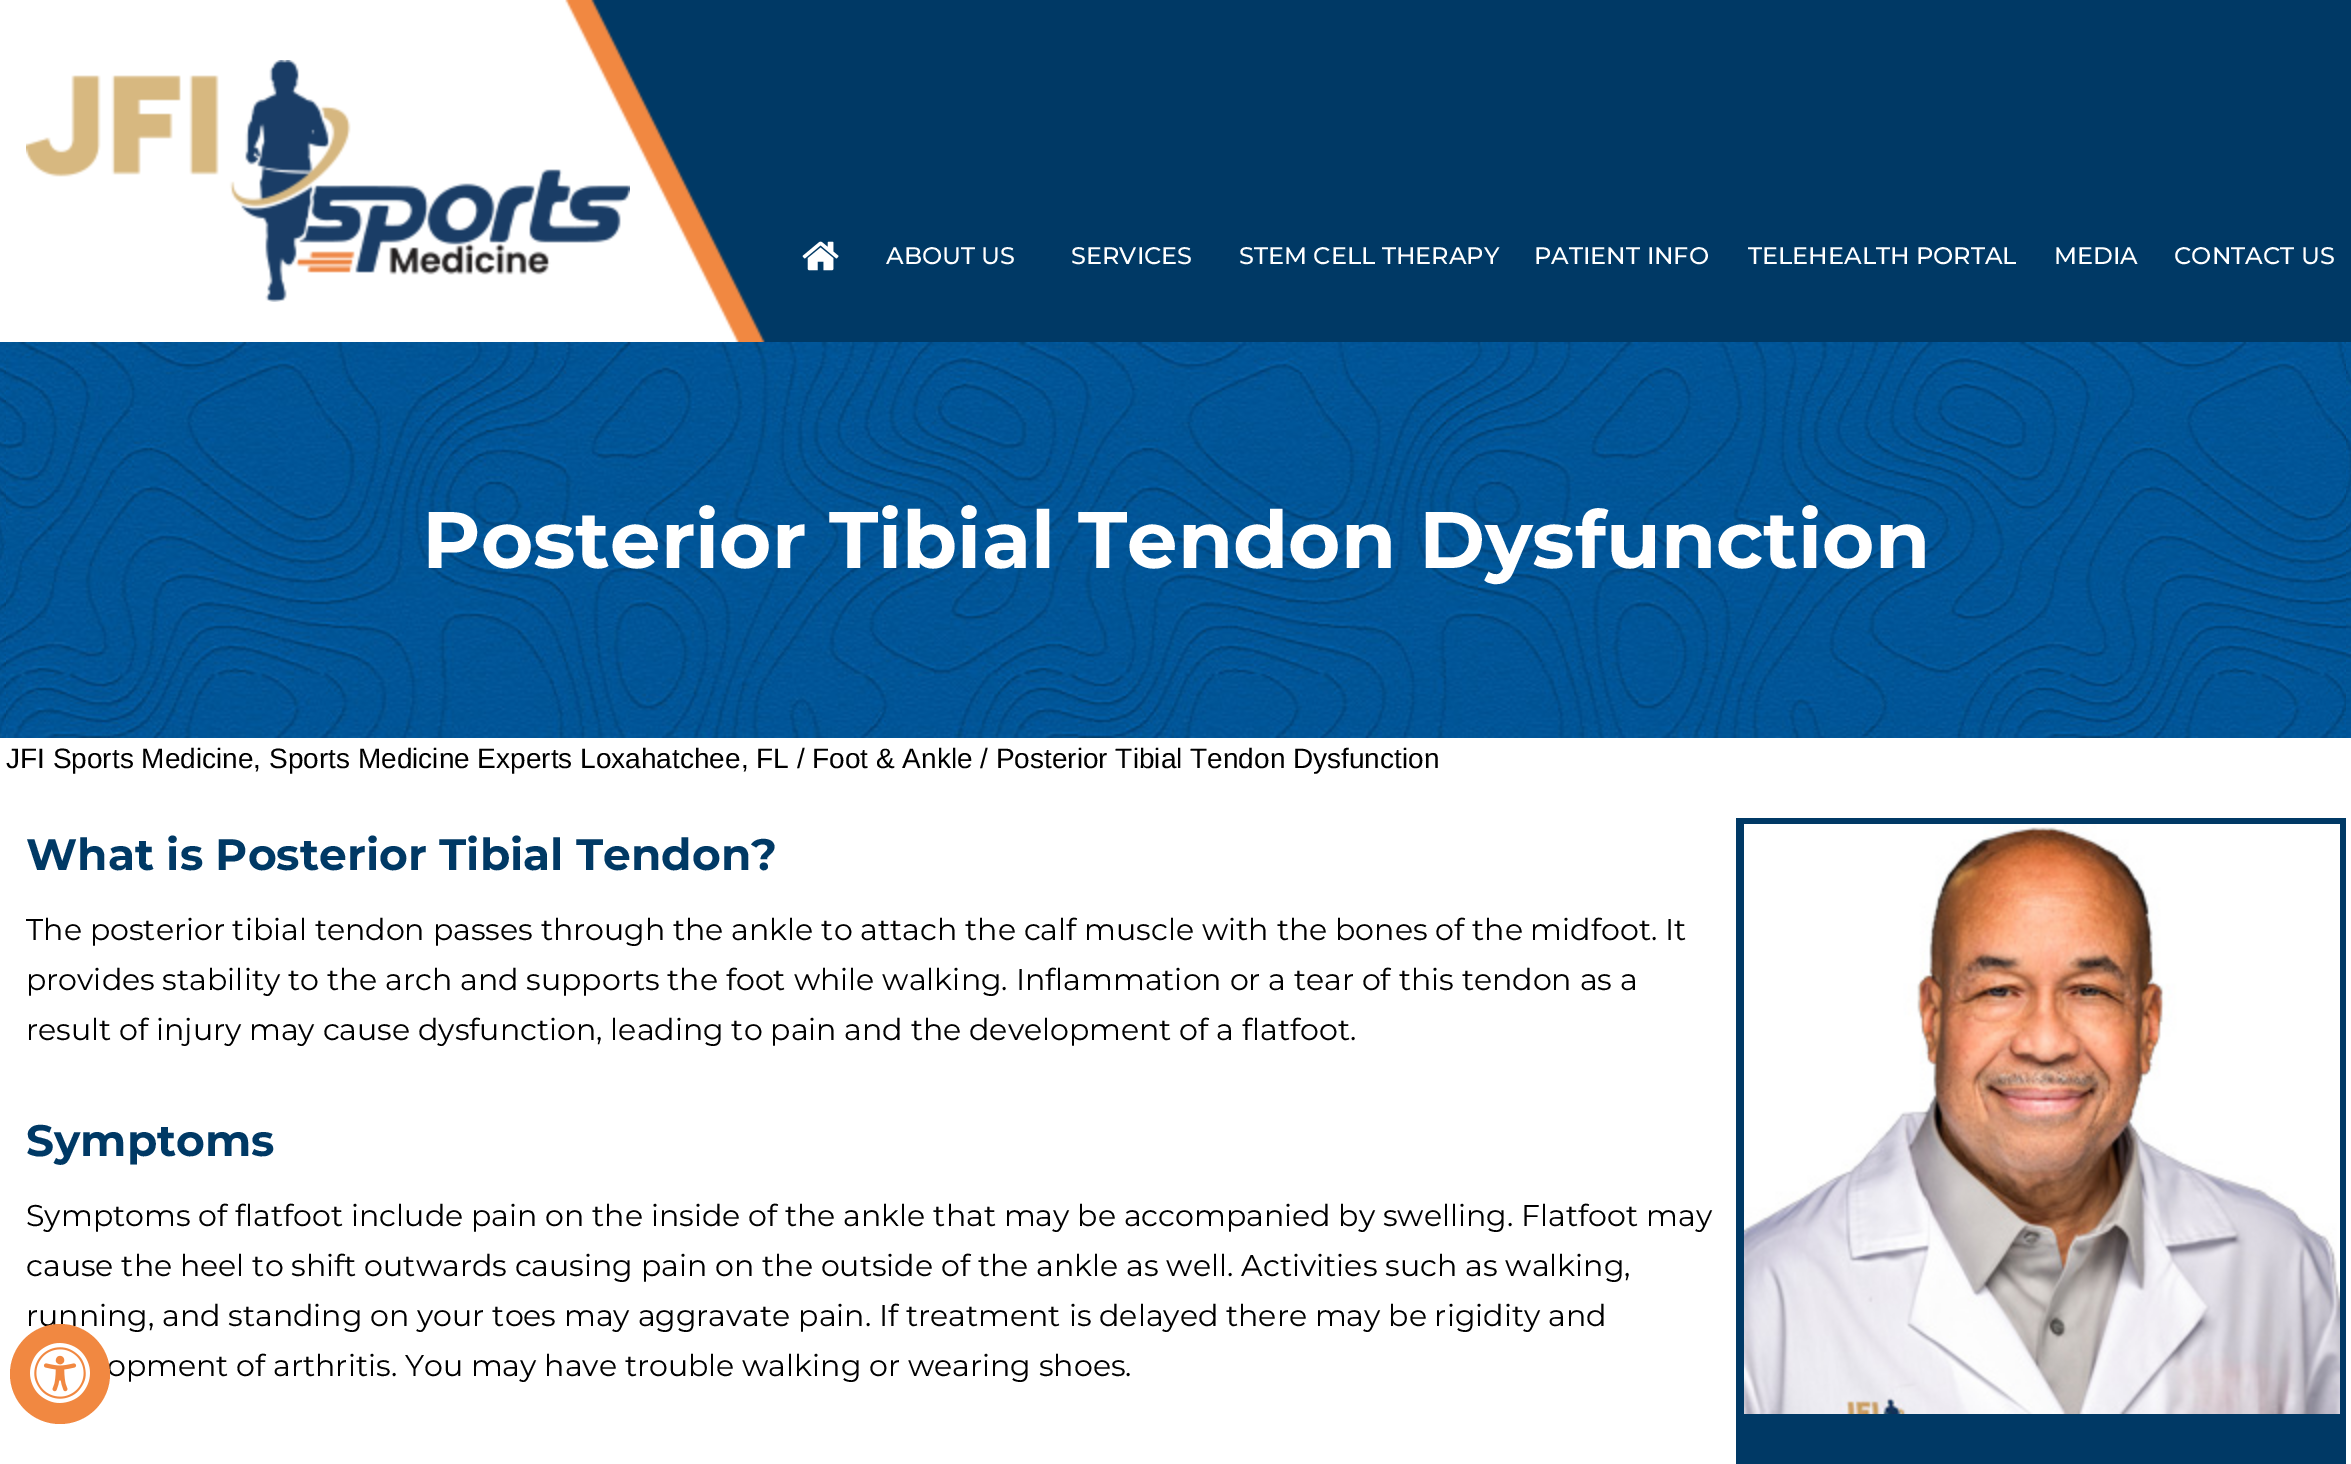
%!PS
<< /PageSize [2351 1464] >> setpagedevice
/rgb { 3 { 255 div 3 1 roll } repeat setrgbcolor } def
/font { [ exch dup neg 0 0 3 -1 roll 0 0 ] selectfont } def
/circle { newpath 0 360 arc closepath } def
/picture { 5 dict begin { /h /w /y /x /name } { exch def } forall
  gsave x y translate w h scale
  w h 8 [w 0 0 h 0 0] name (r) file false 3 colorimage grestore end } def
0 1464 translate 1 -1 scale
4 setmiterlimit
255 255 255 rgb
0 0 2351 1464 rectfill
0 57 101 rgb
591 0 1760 342 rectfill
(img/1.rgb) 6 0 759 342 picture
(img/2.rgb) 26 60 604 242 picture
(img/3.rgb) 802 241 37 30 picture
(img/4.rgb) 6 342 2340 396 picture
(img/5.rgb) 0 342 6 396 picture
(img/6.rgb) 2346 342 5 396 picture
1736 818 610 646 rectfill
(img/7.rgb) 1744 824 596 590 picture
/Montserrat-Medium 24 font
255 255 255 rgb
[
  [(ABOUT US) 886 264]
  [(SERVICES) 1071 264]
  [(STEM CELL THERAPY) 1239 264]
  [(PATIENT INFO) 1534 264]
  [(TELEHEALTH PORTAL) 1748 264]
  [(MEDIA) 2054 264]
  [(CONTACT US) 2174 264]
] { aload pop moveto show } forall
/Montserrat-Bold 80 font
422 568 moveto (Posterior Tibial Tendon Dysfunction) show
/LiberationSans-Regular 28 font
0 0 0 rgb
6 768 moveto (JFI Sports Medicine, Sports Medicine Experts Loxahatchee, FL / Foot & Ankle / Posterior Tibial Tendon Dysfunction) show
/Montserrat-Bold 44 font
0 57 101 rgb
26 870 moveto (What is Posterior Tibial Tendon?) show
/Montserrat-Regular 30 font
0 0 0 rgb
[
  [(The posterior tibial tendon passes through the ankle to attach the calf muscle with the bones of the midfoot. It) 26 940]
  [(provides stability to the arch and supports the foot while walking. Inflammation or a tear of this tendon as a) 26 990]
  [(result of injury may cause dysfunction, leading to pain and the development of a flatfoot.) 26 1040]
] { aload pop moveto show } forall
/Montserrat-Bold 44 font
0 57 101 rgb
26 1156 moveto (Symptoms) show
/Montserrat-Regular 30 font
0 0 0 rgb
[
  [(Symptoms of flatfoot include pain on the inside of the ankle that may be accompanied by swelling. Flatfoot may) 26 1226]
  [(cause the heel to shift outwards causing pain on the outside of the ankle as well. Activities such as walking,) 26 1276]
  [(running, and standing on your toes may aggravate pain. If treatment is delayed there may be rigidity and) 26 1326]
  [(opment of arthritis. You may have trouble walking or wearing shoes.) 107 1376]
] { aload pop moveto show } forall
241 136 65 rgb
60 1374 50 circle fill
(img/8.rgb) 30 1343 60 60 picture
showpage
